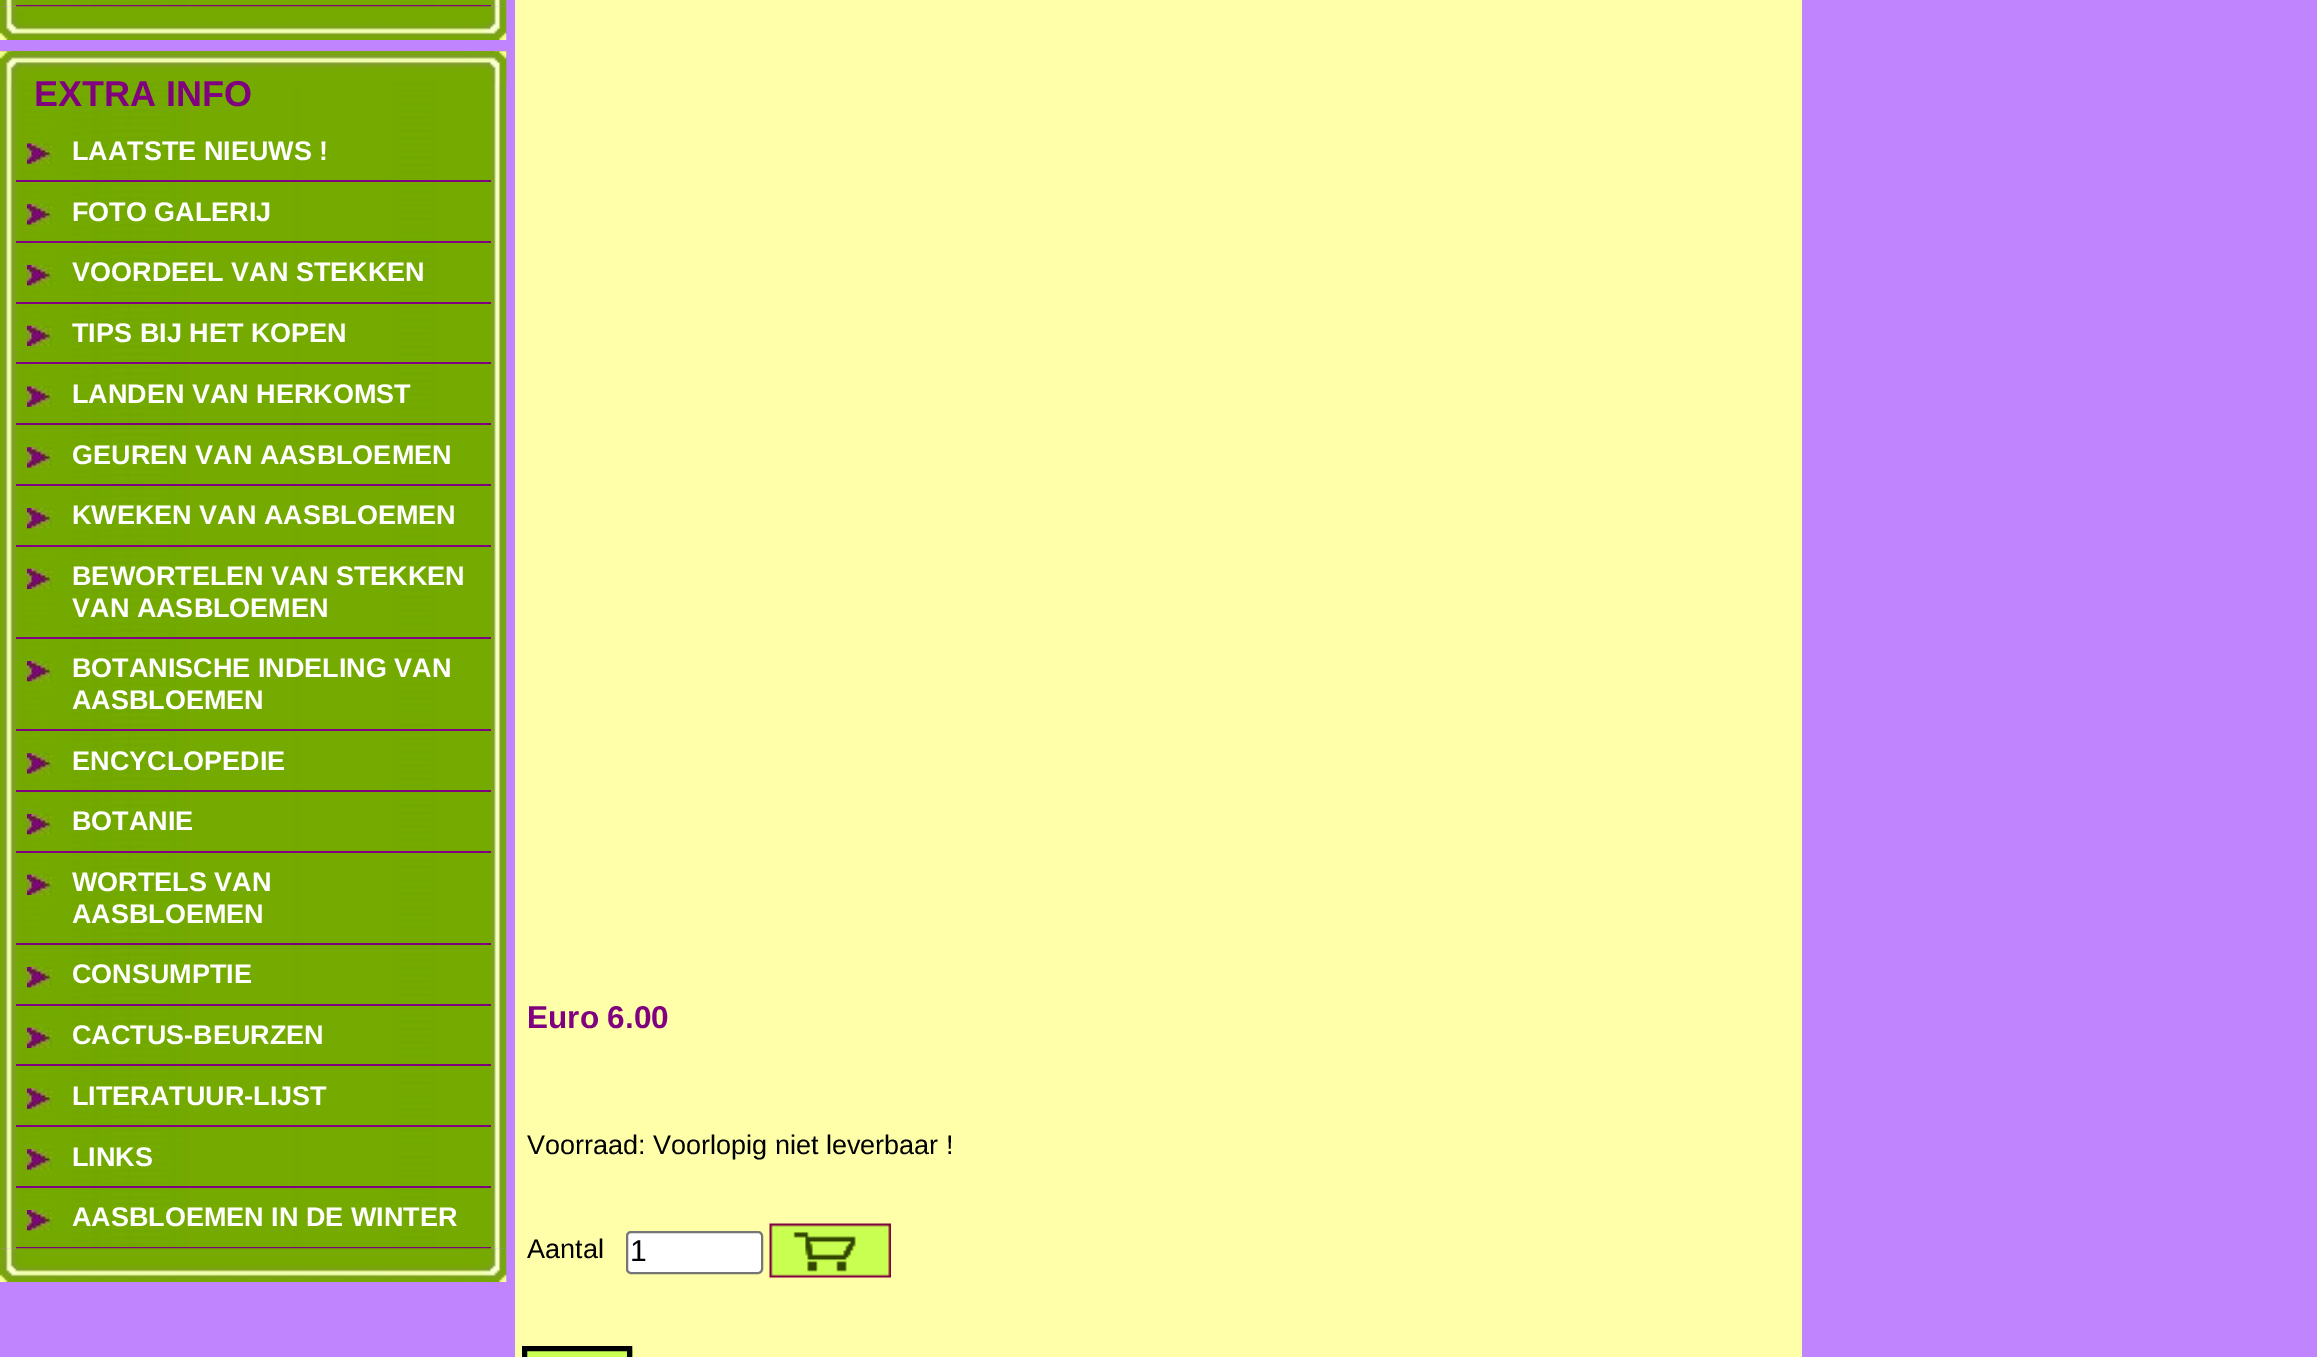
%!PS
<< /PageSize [2317 1357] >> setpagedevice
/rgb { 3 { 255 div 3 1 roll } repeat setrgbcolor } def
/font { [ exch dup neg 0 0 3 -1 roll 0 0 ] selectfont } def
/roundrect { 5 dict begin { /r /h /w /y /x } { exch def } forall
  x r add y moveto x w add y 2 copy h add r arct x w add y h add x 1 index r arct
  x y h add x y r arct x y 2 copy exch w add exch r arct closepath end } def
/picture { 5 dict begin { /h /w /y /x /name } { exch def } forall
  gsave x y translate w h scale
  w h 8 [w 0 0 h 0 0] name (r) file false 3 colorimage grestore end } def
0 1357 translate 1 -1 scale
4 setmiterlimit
193 132 255 rgb
0 0 2317 1357 rectfill
(img/1.rgb) 0 0 507 7 picture
128 0 128 rgb
16 5 475 2 rectfill
(img/2.rgb) 0 6 507 34 picture
(img/3.rgb) 0 51 507 1198 picture
(img/4.rgb) 0 51 507 32 picture
16 180 475 2 rectfill
(img/5.rgb) 27 143 25 21 picture
16 241 475 2 rectfill
(img/6.rgb) 27 204 25 21 picture
16 302 475 2 rectfill
(img/7.rgb) 27 265 25 21 picture
16 362 475 2 rectfill
(img/8.rgb) 27 325 25 21 picture
16 423 475 2 rectfill
(img/9.rgb) 27 386 25 21 picture
16 484 475 2 rectfill
(img/6.rgb) 27 447 25 21 picture
16 545 475 2 rectfill
(img/7.rgb) 27 508 25 21 picture
16 637 475 2 rectfill
(img/8.rgb) 27 568 25 21 picture
16 729 475 2 rectfill
(img/10.rgb) 27 661 25 21 picture
16 790 475 2 rectfill
(img/11.rgb) 27 753 25 21 picture
16 851 475 2 rectfill
(img/12.rgb) 27 814 25 21 picture
16 943 475 2 rectfill
(img/13.rgb) 27 874 25 21 picture
16 1004 475 2 rectfill
(img/7.rgb) 27 967 25 21 picture
16 1064 475 2 rectfill
(img/14.rgb) 27 1027 25 21 picture
16 1125 475 2 rectfill
(img/15.rgb) 27 1088 25 21 picture
16 1186 475 2 rectfill
(img/6.rgb) 27 1149 25 21 picture
16 1247 475 2 rectfill
(img/16.rgb) 27 1210 25 21 picture
(img/2.rgb) 0 1248 507 34 picture
255 255 170 rgb
515 0 1287 1357 rectfill
255 255 255 rgb
627 1232 135 41 4 roundrect gsave fill grestore
118 118 118 rgb
2 setlinewidth
stroke
(img/17.rgb) 769 1223 122 55 picture
200 255 80 rgb
522 1349 111 8 rectfill
0 0 0 rgb
5 setlinewidth
524.5 1348.5 105 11 rectstroke
/LiberationSans-Bold 36 font
128 0 128 rgb
34 106 moveto (EXTRA INFO) show
/LiberationSans-Bold 27 font
255 255 255 rgb
[
  [(LAATSTE NIEUWS !) 72 160]
  [(FOTO GALERIJ) 72 221]
  [(VOORDEEL VAN STEKKEN) 72 281]
  [(TIPS BIJ HET KOPEN) 72 342]
  [(LANDEN VAN HERKOMST) 72 403]
  [(GEUREN VAN AASBLOEMEN) 72 464]
  [(KWEKEN VAN AASBLOEMEN) 72 524]
  [(BEWORTELEN VAN STEKKEN) 72 585]
  [(VAN AASBLOEMEN) 72 617]
  [(BOTANISCHE INDELING VAN) 72 677]
  [(AASBLOEMEN) 72 709]
  [(ENCYCLOPEDIE) 72 770]
  [(BOTANIE) 72 830]
  [(WORTELS VAN) 72 891]
  [(AASBLOEMEN) 72 923]
  [(CONSUMPTIE) 72 983]
  [(CACTUS-BEURZEN) 72 1044]
  [(LITERATUUR-LIJST) 72 1105]
  [(LINKS) 72 1166]
  [(AASBLOEMEN IN DE WINTER) 72 1226]
] { aload pop moveto show } forall
/LiberationSans-Bold 31.5 font
128 0 128 rgb
527 1028 moveto (Euro 6.00) show
/LiberationSans-Regular 27 font
0 0 0 rgb
527 1154 moveto (Voorraad: Voorlopig niet leverbaar !) show
527 1258 moveto (Aantal) show
/LiberationSans-Regular 30 font
630 1261 moveto (1) show
showpage
